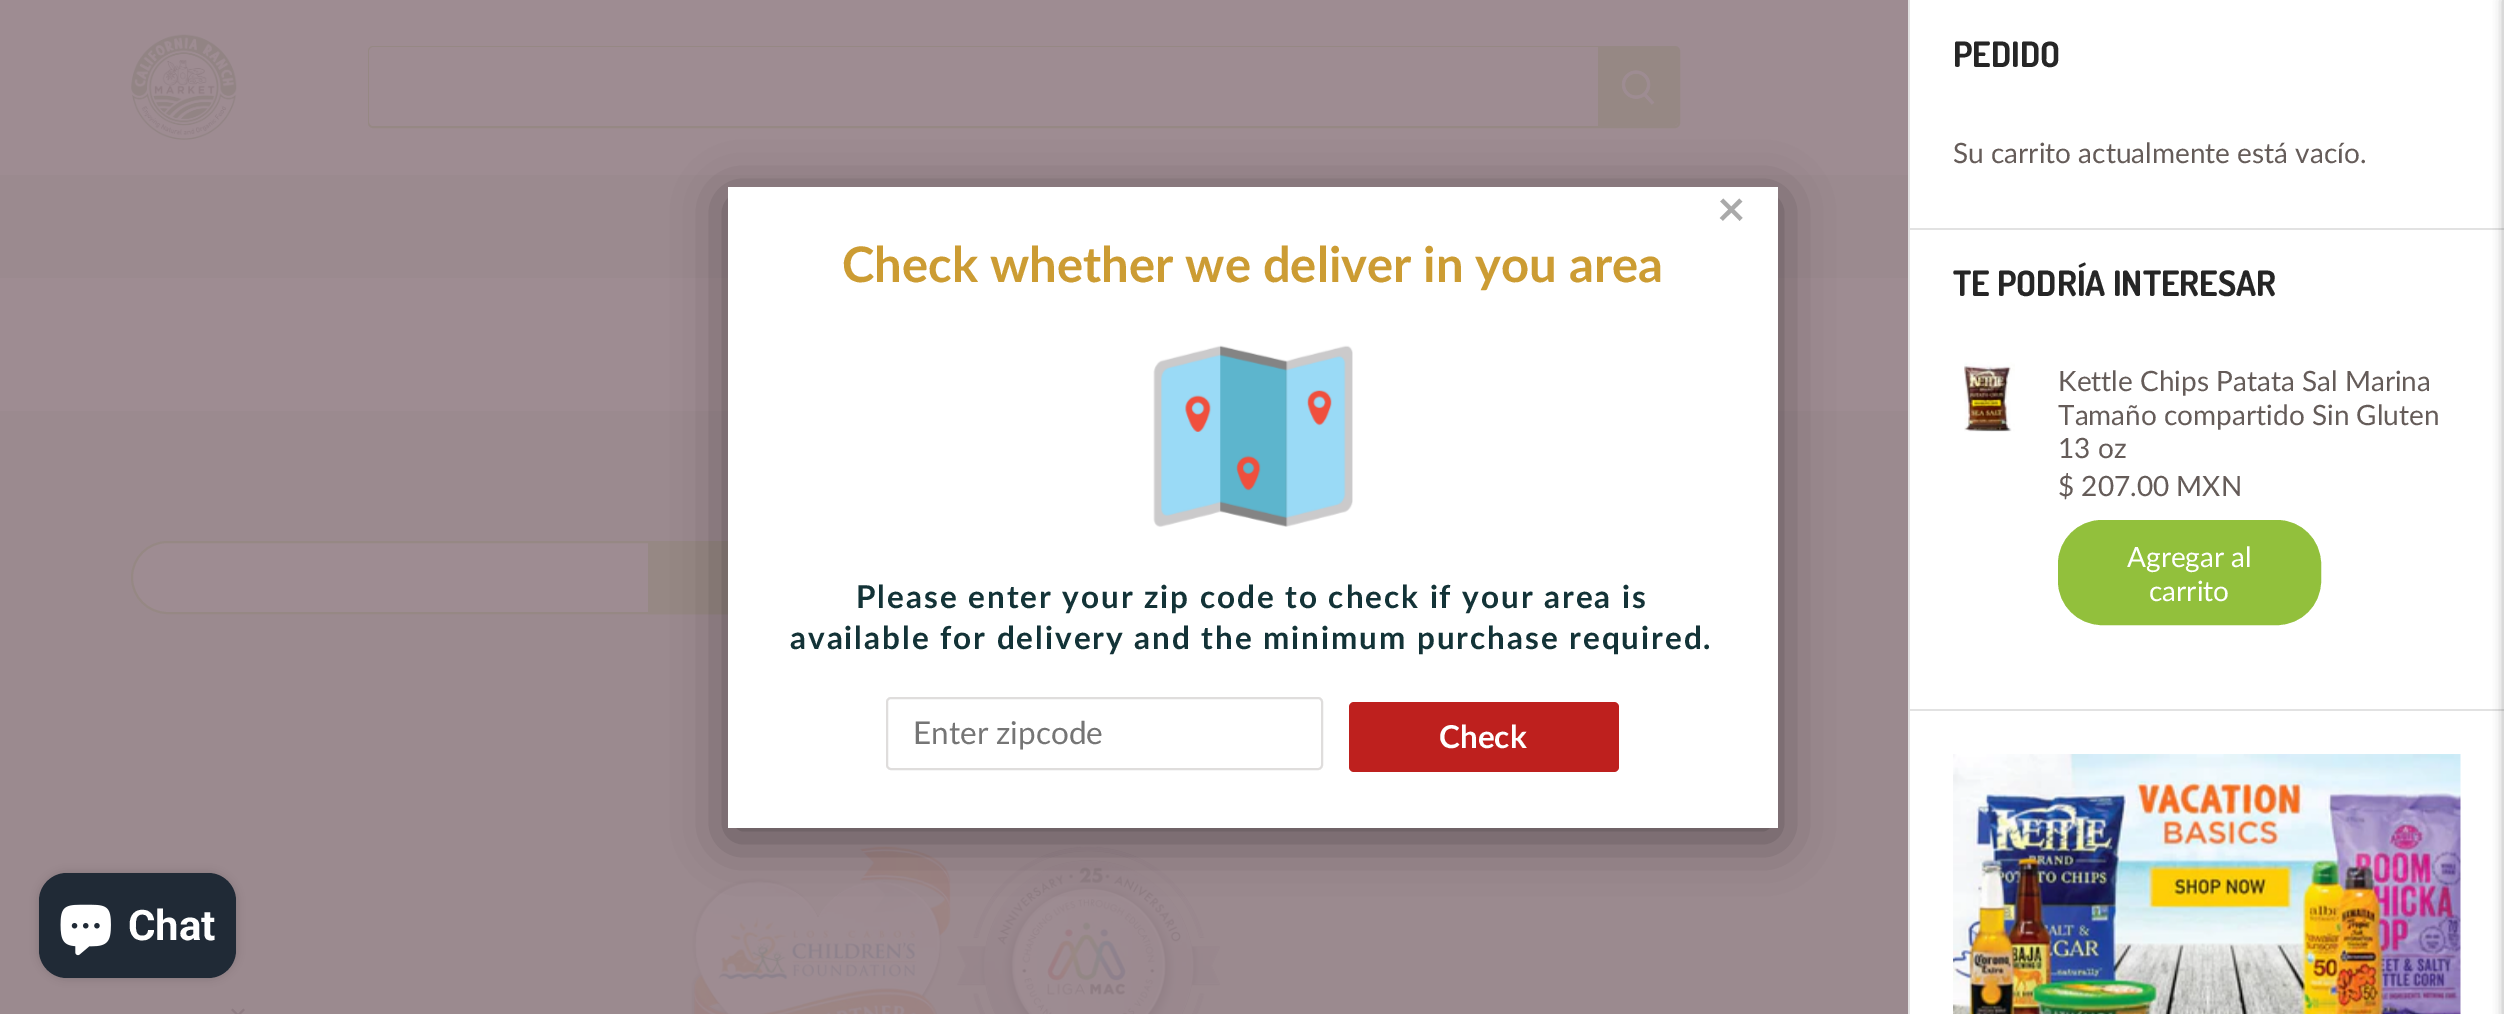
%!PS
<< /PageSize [2504 1014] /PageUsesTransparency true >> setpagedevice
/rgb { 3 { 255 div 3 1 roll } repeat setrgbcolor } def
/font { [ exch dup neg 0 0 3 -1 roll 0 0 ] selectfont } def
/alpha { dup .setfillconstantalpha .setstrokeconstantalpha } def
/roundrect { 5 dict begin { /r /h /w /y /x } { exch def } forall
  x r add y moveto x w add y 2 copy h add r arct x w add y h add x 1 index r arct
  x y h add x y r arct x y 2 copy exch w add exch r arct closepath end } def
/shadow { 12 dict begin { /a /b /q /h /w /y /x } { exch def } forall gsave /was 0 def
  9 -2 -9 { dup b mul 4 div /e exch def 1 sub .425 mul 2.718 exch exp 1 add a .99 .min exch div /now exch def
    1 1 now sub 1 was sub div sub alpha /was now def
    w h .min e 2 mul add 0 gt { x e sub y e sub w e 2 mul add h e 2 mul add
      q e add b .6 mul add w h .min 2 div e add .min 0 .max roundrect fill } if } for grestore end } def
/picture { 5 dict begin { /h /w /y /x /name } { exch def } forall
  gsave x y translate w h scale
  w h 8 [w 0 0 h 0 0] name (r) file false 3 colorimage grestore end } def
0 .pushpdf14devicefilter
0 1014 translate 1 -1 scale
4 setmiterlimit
155 138 143 rgb
0 0 2504 1014 rectfill
158 140 146 rgb
0 278 1908 133 rectfill
0 0 1908 175 rectfill
(img/1.rgb) 131 34 106 106 picture
150 136 132 rgb
2 setlinewidth
369 47 1310 80 4 roundrect stroke
gsave
369 47 1309 79 4 roundrect clip newpath
158 140 146 rgb
374 47 moveto 1600 47 lineto 1600 126 lineto 374 126 lineto 371 126 369 124 369 121 curveto 369 52 lineto 369 49 371 47 374 47 curveto closepath fill
grestore
1598 47 moveto 1674 47 lineto 1676 47 1678 49 1678 51 curveto 1678 122 lineto 1678 124 1676 126 1674 126 curveto 1598 126 lineto closepath fill
(img/2.rgb) 1621 70 34 35 picture
158 140 146 rgb
132 542 702 71 35.5 roundrect gsave fill grestore
150 136 132 rgb
stroke
650 543 78 69 rectfill
649 542 187 71 rectstroke
(img/4.rgb) 1778 577 1 13 picture
(img/6.rgb) 690 846 261 168 picture
(img/7.rgb) 957 846 263 168 picture
0 0 0 rgb
728 198 1050 640 0 26 0.4 shadow
255 255 255 rgb
728 187 1050 641 rectfill
(img/3.rgb) 1153 345 200 182 picture
223 221 220 rgb
887 698 435 71 4 roundrect stroke
190 32 30 rgb
1349 702 270 70 5 roundrect fill
(img/5.rgb) 231 1008 14 6 picture
[
  [1910 0 594 1014 255 255 255]
  [1908 0 2 1014 226 226 226]
  [1909 228 595 2 226 226 226]
] { aload pop rgb rectfill } forall
(img/8.rgb) 1964 362 51 70 picture
146 192 60 rgb
2060 522 259 101 42 roundrect gsave fill grestore
4 setlinewidth
stroke
226 226 226 rgb
1909 709 595 2 rectfill
(img/9.rgb) 1953 754 508 260 picture
0 0 0 rgb
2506 0 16 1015 0 6 0.5 shadow
39 873 197 105 28 4.5 0.15 shadow
32 42 54 rgb
39 873 197 105 28 roundrect fill
(img/10.rgb) 60 904 51 52 picture
/Lato-Bold 49 font
170 170 170 rgb
1717 226 moveto (×) show
204 156 51 rgb
842 282 moveto (Check whether we deliver in you area) show
/Lato-Bold 31.5 font
19 51 55 rgb
856 608 moveto 1.95 0 (Please enter your zip code to check if your area is) ashow
790 649 moveto 1.95 0 (available for delivery and the minimum purchase required.) ashow
/Lato-Regular 31.5 font
117 117 117 rgb
913 744 moveto (Enter zipcode) show
/Lato-Bold 31.5 font
255 255 255 rgb
1439 748 moveto (Check) show
/Dosis-Bold 35 font
38 38 38 rgb
1953 67 moveto (PEDIDO) show
/Lato-Regular 28 font
101 92 89 rgb
1953 163 moveto (Su carrito actualmente está vacío.) show
/Dosis-Bold 35 font
38 38 38 rgb
1953 296 moveto (TE PODRÍA INTERESAR) show
/Lato-Regular 28 font
101 92 89 rgb
[
  [(Kettle Chips Patata Sal Marina) 2058 391]
  [(Tamaño compartido Sin Gluten) 2058 425]
  [(13 oz) 2058 458]
  [($ 207.00 MXN) 2058 496]
] { aload pop moveto show } forall
255 255 255 rgb
2127 567 moveto (Agregar al) show
2149 601 moveto (carrito) show
/Roboto-Bold 42 font
128 940 moveto (Chat) show
.poppdf14devicefilter showpage
